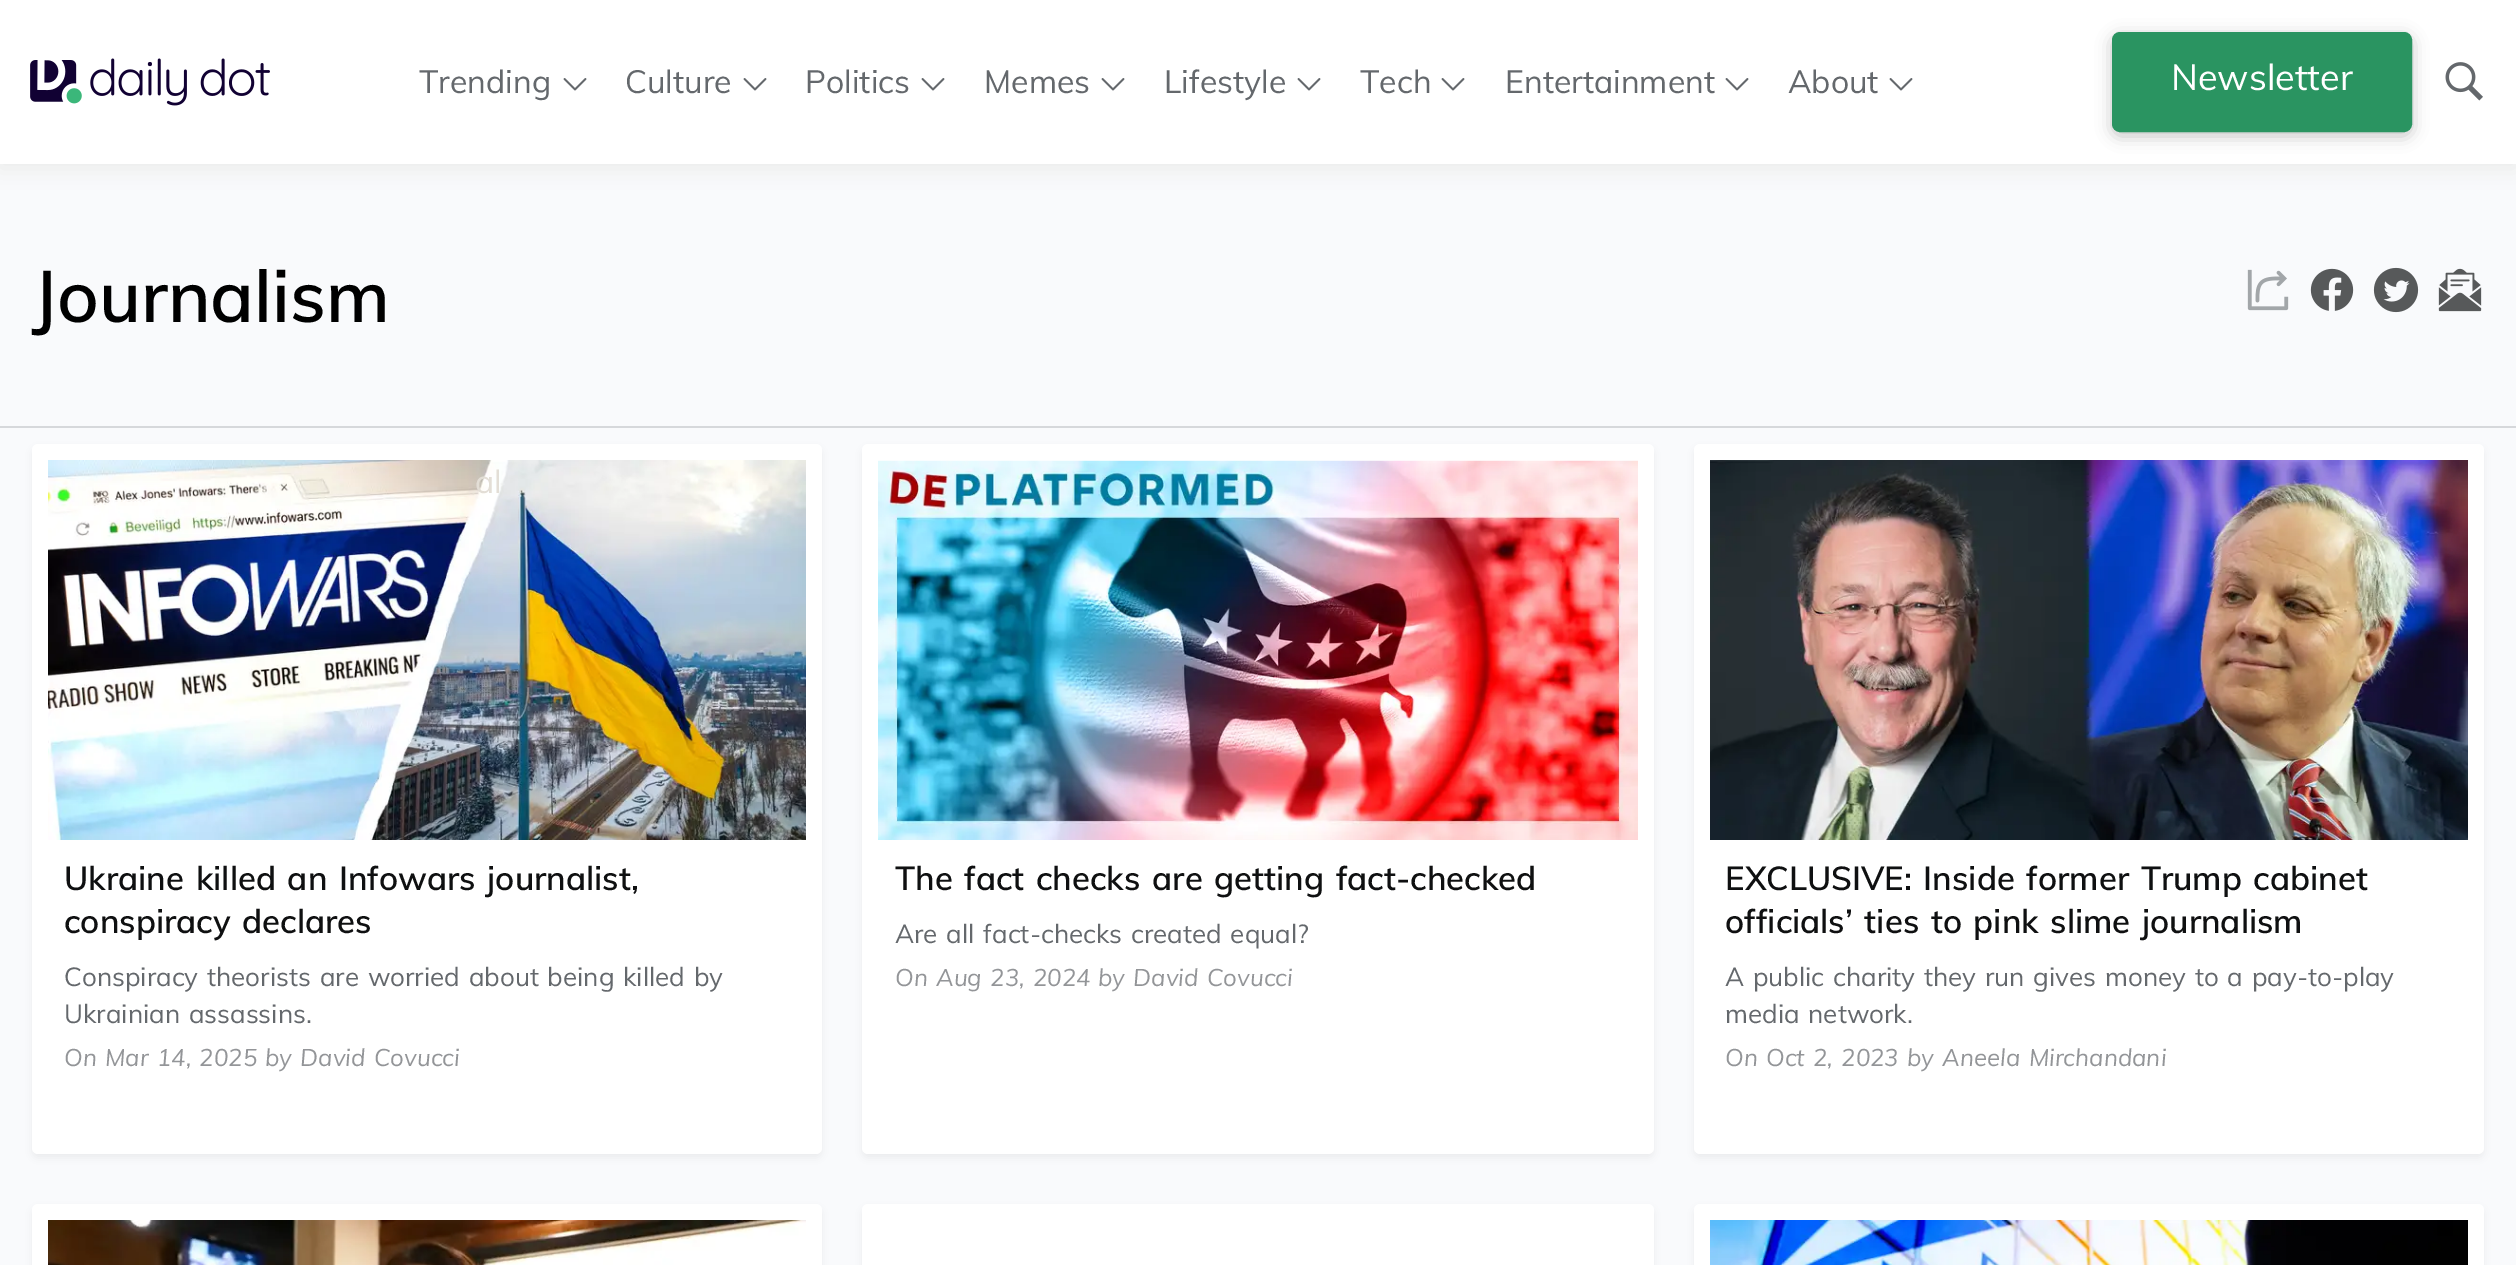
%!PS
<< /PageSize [2516 1265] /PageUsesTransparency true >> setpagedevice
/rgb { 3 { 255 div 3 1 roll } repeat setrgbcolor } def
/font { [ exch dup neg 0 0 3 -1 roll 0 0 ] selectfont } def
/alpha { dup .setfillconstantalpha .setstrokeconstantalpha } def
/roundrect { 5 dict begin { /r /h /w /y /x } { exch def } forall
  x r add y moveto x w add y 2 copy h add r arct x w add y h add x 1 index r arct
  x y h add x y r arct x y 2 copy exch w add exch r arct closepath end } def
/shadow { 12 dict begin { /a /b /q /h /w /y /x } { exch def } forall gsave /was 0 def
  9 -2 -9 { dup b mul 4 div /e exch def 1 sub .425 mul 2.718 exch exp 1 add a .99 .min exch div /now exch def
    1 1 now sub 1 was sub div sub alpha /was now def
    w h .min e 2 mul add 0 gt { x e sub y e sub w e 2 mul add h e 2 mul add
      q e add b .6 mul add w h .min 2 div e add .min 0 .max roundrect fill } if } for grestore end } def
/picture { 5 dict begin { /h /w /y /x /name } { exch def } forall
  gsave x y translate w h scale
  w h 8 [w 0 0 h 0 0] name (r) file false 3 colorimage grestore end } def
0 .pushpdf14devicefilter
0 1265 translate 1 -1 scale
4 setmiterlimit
249 250 252 rgb
0 0 2516 1265 rectfill
202 202 202 rgb
0 4 2516 164 0 10 0.35 shadow
255 255 255 rgb
0 0 2516 164 rectfill
(img/1.rgb) 30 58 240 48 picture
(img/2.rgb) 563 78 24 13 picture
(img/2.rgb) 743 78 24 13 picture
(img/2.rgb) 921 78 24 13 picture
(img/2.rgb) 1101 78 24 13 picture
(img/2.rgb) 1297 78 24 13 picture
(img/2.rgb) 1441 78 24 13 picture
(img/2.rgb) 1725 78 24 13 picture
(img/2.rgb) 1889 78 24 13 picture
0 0 0 rgb
2112 36 300 100 8 8 0.24 shadow
42 148 97 rgb
2113 33 298 98 7 roundrect gsave fill grestore
2 setlinewidth
stroke
(img/3.rgb) 2445 62 38 39 picture
214 216 219 rgb
0 426 2516 2 rectfill
(img/4.rgb) 2247 269 42 42 picture
(img/5.rgb) 2310 268 44 43 picture
(img/6.rgb) 2373 267 46 46 picture
(img/7.rgb) 2438 268 44 44 picture
0 0 0 rgb
32 448 790 710 6 4 0.06 shadow
255 255 255 rgb
32 444 790 710 6 roundrect fill
(img/8.rgb) 48 460 758 380 picture
0 0 0 rgb
862 448 792 710 6 4 0.06 shadow
255 255 255 rgb
862 444 792 710 6 roundrect fill
(img/9.rgb) 878 460 760 380 picture
0 0 0 rgb
1694 448 790 710 6 4 0.06 shadow
255 255 255 rgb
1694 444 790 710 6 roundrect fill
(img/10.rgb) 1710 460 758 380 picture
0 0 0 rgb
32 1208 790 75 6 4 0.06 shadow
255 255 255 rgb
32 1204 790 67 6 roundrect fill
(img/11.rgb) 48 1220 758 45 picture
0 0 0 rgb
862 1208 792 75 6 4 0.06 shadow
255 255 255 rgb
862 1204 792 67 6 roundrect fill
0 0 0 rgb
1694 1208 790 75 6 4 0.06 shadow
255 255 255 rgb
1694 1204 790 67 6 roundrect fill
(img/12.rgb) 1710 1220 758 45 picture
/Muli-Regular 32 font
100 104 108 rgb
419 93 moveto (Trending) show
227 222 214 rgb
475 493 moveto (al) show
100 104 108 rgb
[
  [(Culture) 625 93]
  [(Politics) 805 93]
  [(Memes) 984 93]
  [(Lifestyle) 1164 93]
  [(Tech) 1360 93]
  [(Entertainment) 1505 93]
  [(About) 1788 93]
] { aload pop moveto show } forall
/Muli-Regular 36 font
255 255 255 rgb
2171 90 moveto (Newsletter) show
/Muli-SemiBold 72 font
0 0 0 rgb
32 322 moveto (Journalism) show
/Muli-SemiBold 33 font
15 16 17 rgb
64 890 moveto 2.75 0 32 (Ukraine killed an Infowars journalist,) widthshow
64 933 moveto 2.75 0 32 (conspiracy declares) widthshow
/Muli-Regular 26 font
100 104 108 rgb
64 986 moveto 2 0 32 (Conspiracy theorists are worried about being killed by) widthshow
64 1023 moveto 2 0 32 (Ukrainian assassins.) widthshow
/Muli-Italic 24 font
147 149 152 rgb
64 1066 moveto (On) show
105 1066 moveto 2 0 32 (Mar 14, 2025) widthshow
265 1066 moveto 2 0 32 (by David Covucci) widthshow
/Muli-SemiBold 33 font
15 16 17 rgb
895 890 moveto 2.75 0 32 (The fact checks are getting fact-checked) widthshow
/Muli-Regular 26 font
100 104 108 rgb
895 943 moveto 2 0 32 (Are all fact-checks created equal?) widthshow
/Muli-Italic 24 font
147 149 152 rgb
895 986 moveto (On) show
936 986 moveto 2 0 32 (Aug 23, 2024) widthshow
1098 986 moveto 2 0 32 (by David Covucci) widthshow
/Muli-SemiBold 33 font
15 16 17 rgb
1725 890 moveto 2.75 0 32 (EXCLUSIVE: Inside former Trump cabinet) widthshow
1725 933 moveto 2.75 0 32 (officials’ ties to pink slime journalism) widthshow
/Muli-Regular 26 font
100 104 108 rgb
1725 986 moveto 2 0 32 (A public charity they run gives money to a pay-to-play) widthshow
1725 1023 moveto 2 0 32 (media network.) widthshow
/Muli-Italic 24 font
147 149 152 rgb
1725 1066 moveto (On) show
1766 1066 moveto 2 0 32 (Oct 2, 2023) widthshow
1907 1066 moveto 2 0 32 (by Aneela Mirchandani) widthshow
.poppdf14devicefilter showpage
